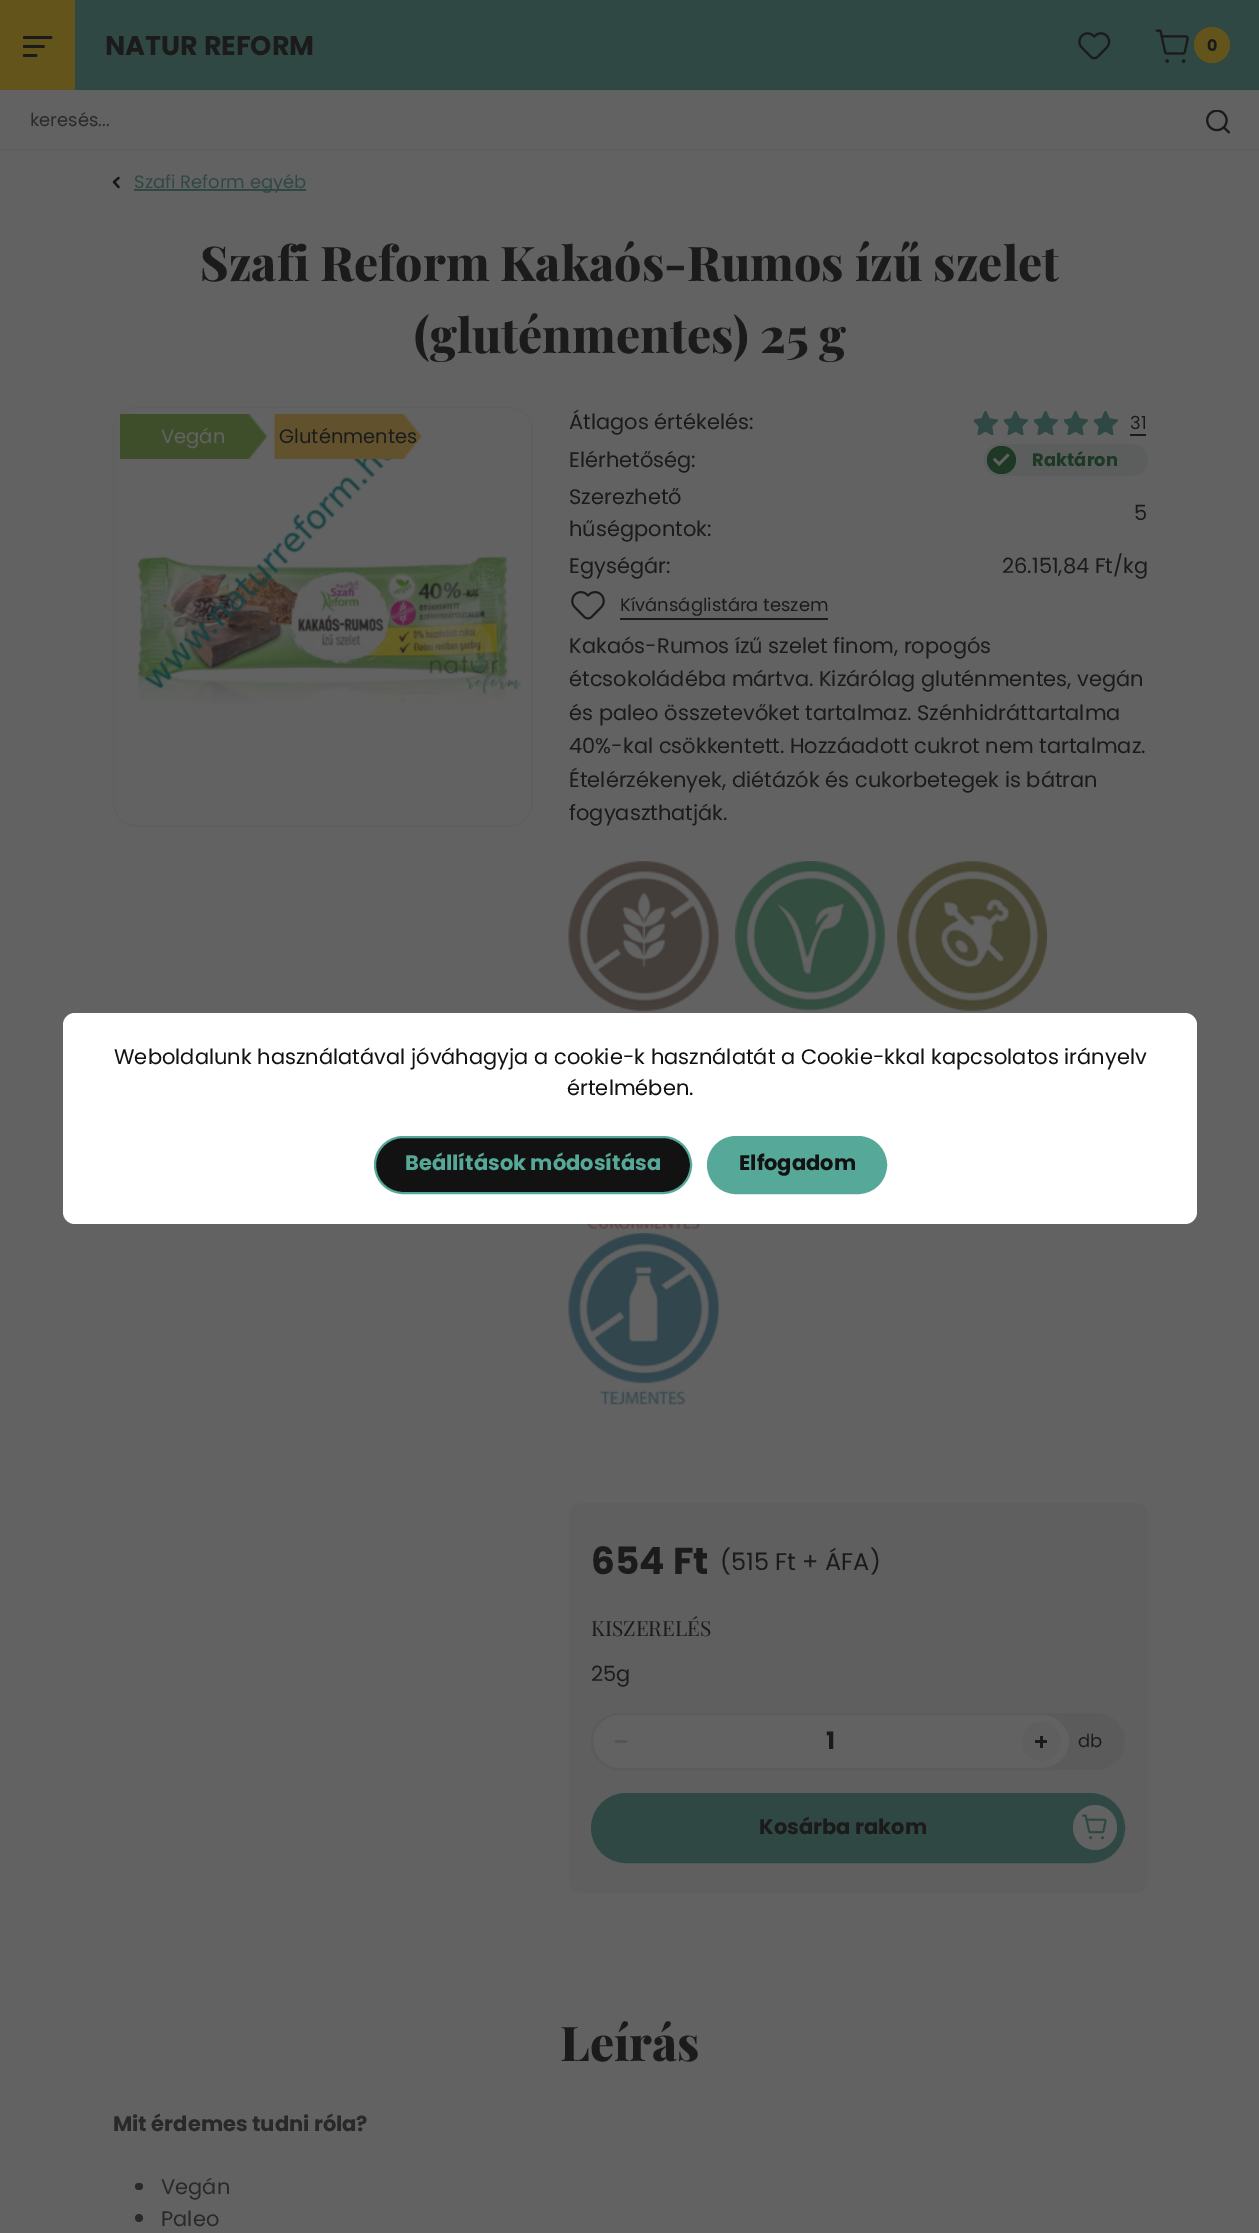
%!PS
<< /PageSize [1259 2233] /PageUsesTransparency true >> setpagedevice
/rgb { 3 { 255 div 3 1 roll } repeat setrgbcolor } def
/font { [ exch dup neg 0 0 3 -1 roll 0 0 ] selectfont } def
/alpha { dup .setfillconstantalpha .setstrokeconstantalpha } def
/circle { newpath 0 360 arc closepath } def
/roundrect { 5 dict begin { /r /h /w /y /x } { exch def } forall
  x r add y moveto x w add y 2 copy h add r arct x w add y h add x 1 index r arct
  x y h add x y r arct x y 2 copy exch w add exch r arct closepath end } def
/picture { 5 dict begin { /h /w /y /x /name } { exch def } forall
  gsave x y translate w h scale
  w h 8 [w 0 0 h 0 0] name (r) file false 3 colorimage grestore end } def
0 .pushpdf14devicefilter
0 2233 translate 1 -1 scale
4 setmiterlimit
98 98 98 rgb
0 0 1259 2233 rectfill
48 72 67 rgb
75 0 1184 90 rectfill
98 84 26 rgb
0 0 75 90 rectfill
(img/1.rgb) 23 36 30 21 picture
(img/2.rgb) 1078 32 33 28 picture
(img/3.rgb) 1155 29 34 34 picture
1212 45 18 circle fill
94 94 94 rgb
0 149 1259 2 rectfill
(img/4.rgb) 1206 110 24 24 picture
22 22 22 rgb
2.2 setlinewidth
1 setlinecap
1 setlinejoin
118.5 187 moveto 114 182 lineto 118.5 178 lineto stroke
48 72 67 rgb
134 189 172 2 rectfill
94 94 94 rgb
2 setlinewidth
0 setlinecap
0 setlinejoin
114 408 418 418 23 roundrect stroke
(img/5.rgb) 114 408 417 416 picture
(img/6.rgb) 120 414 147 45 picture
(img/7.rgb) 274 414 148 45 picture
(img/8.rgb) 974 411 24 24 picture
(img/8.rgb) 1004 411 24 24 picture
(img/8.rgb) 1034 411 24 24 picture
(img/8.rgb) 1064 411 24 24 picture
(img/8.rgb) 1094 411 24 24 picture
27 27 27 rgb
1130 434 16 2 rectfill
91 94 92 rgb
984 444 164 32 16 roundrect fill
29 57 38 rgb
987 446 29 28 14 roundrect fill
(img/9.rgb) 992 453 18 13 picture
(img/10.rgb) 571 591 34 29 picture
27 27 27 rgb
620 618 208 2 rectfill
(img/11.rgb) 568 861 151 151 picture
(img/12.rgb) 735 861 150 151 picture
(img/13.rgb) 897 861 150 151 picture
(img/14.rgb) 587 1224 113 6 picture
(img/15.rgb) 568 1233 151 173 picture
95 95 95 rgb
569 1503 579 390 12 roundrect fill
91 91 91 rgb
591 1713 534 57 28.5 roundrect fill
98 98 98 rgb
591 1713 480 57 28.5 roundrect fill
0.1 alpha
27 27 27 rgb
592 1714 478 55 27.5 roundrect stroke
1 alpha
85 85 85 rgb
615 1740 12 3 rectfill
95 95 95 rgb
1041.5 1741.5 19.5 circle fill
27 27 27 rgb
1035 1740 12 3 rectfill
1040 1736 3 12 rectfill
48 72 67 rgb
592 1794 532 68 34 roundrect gsave fill grestore
stroke
(img/16.rgb) 1073 1805 44 45 picture
41 41 41 rgb
135 2183 8 7 3.5 roundrect fill
139 2218 4 circle fill
255 255 255 rgb
63 1013 1134 211 12 roundrect fill
18 18 18 rgb
375 1137 316 56 28 roundrect gsave fill grestore
86 168 152 rgb
stroke
708 1137 178 56 28 roundrect gsave fill grestore
stroke
/Poppins-Bold 27 font
27 27 27 rgb
105 55 moveto (NATUR REFORM) show
/Poppins-Bold 16 font
1207 51 moveto (0) show
/Poppins-Regular 18 font
41 41 41 rgb
30 126 moveto (keresés...) show
48 72 67 rgb
134 188 moveto (Szafi Reform egyéb) show
/PlayfairDisplay-ExtraBold 48 font
27 27 27 rgb
200 281 moveto (Szafi Reform Kakaós-Rumos ízű szelet) show
414 353 moveto (\(gluténmentes\) 25 g) show
/Poppins-Regular 19.5 font
98 98 98 rgb
161 443 moveto (Vegán) show
27 27 27 rgb
279 443 moveto (Gluténmentes) show
/Poppins-Regular 21 font
569 429 moveto (Átlagos értékelés:) show
/Poppins-Regular 18 font
1130 429 moveto (31) show
/Poppins-Regular 21 font
569 467 moveto (Elérhetőség:) show
/Poppins-Bold 18 font
29 57 38 rgb
1032 466 moveto (Raktáron) show
/Poppins-Regular 21 font
27 27 27 rgb
[
  [(Szerezhető) 569 504]
  [(hűségpontok:) 569 536]
  [(5) 1134 520]
  [(Egységár:) 569 573]
  [(26.151,84 Ft/kg) 1002 573]
] { aload pop moveto show } forall
/Poppins-Regular 18 font
620 611 moveto (Kívánságlistára teszem) show
/Poppins-Regular 21 font
[
  [(Kakaós-Rumos ízű szelet finom, ropogós) 569 653]
  [(étcsokoládéba mártva. Kizárólag gluténmentes, vegán) 569 686]
  [(és paleo összetevőket tartalmaz. Szénhidráttartalma) 569 720]
  [(40%-kal csökkentett. Hozzáadott cukrot nem tartalmaz.) 569 753]
  [(Ételérzékenyek, diétázók és cukorbetegek is bátran) 569 787]
  [(fogyaszthatják.) 569 820]
] { aload pop moveto show } forall
/Poppins-Bold 37.5 font
591 1574 moveto (654 Ft) show
/Poppins-Regular 24 font
720 1570 moveto (\(515 Ft + ÁFA\)) show
/PlayfairDisplay-Regular 21 font
591 1636 moveto (KISZERELÉS) show
/Poppins-Regular 21 font
591 1681 moveto (25g) show
/Poppins-Bold 24 font
826 1749 moveto (1) show
/Poppins-Regular 18 font
1078 1747 moveto (db) show
/Poppins-Bold 21 font
759 1834 moveto (Kosárba rakom) show
/PlayfairDisplay-ExtraBold 48 font
560 2061 moveto (Leírás) show
/Poppins-Bold 21 font
41 41 41 rgb
113 2131 moveto (Mit érdemes tudni róla?) show
/Poppins-Regular 21 font
161 2194 moveto (Vegán) show
161 2226 moveto (Paleo) show
18 18 18 rgb
114 1064 moveto (Weboldalunk használatával jóváhagyja a cookie-k használatát a Cookie-kkal kapcsolatos irányelv) show
567 1095 moveto (értelmében.) show
/Poppins-Bold 21 font
86 168 152 rgb
405 1170 moveto (Beállítások módosítása) show
18 18 18 rgb
739 1170 moveto (Elfogadom) show
.poppdf14devicefilter showpage
